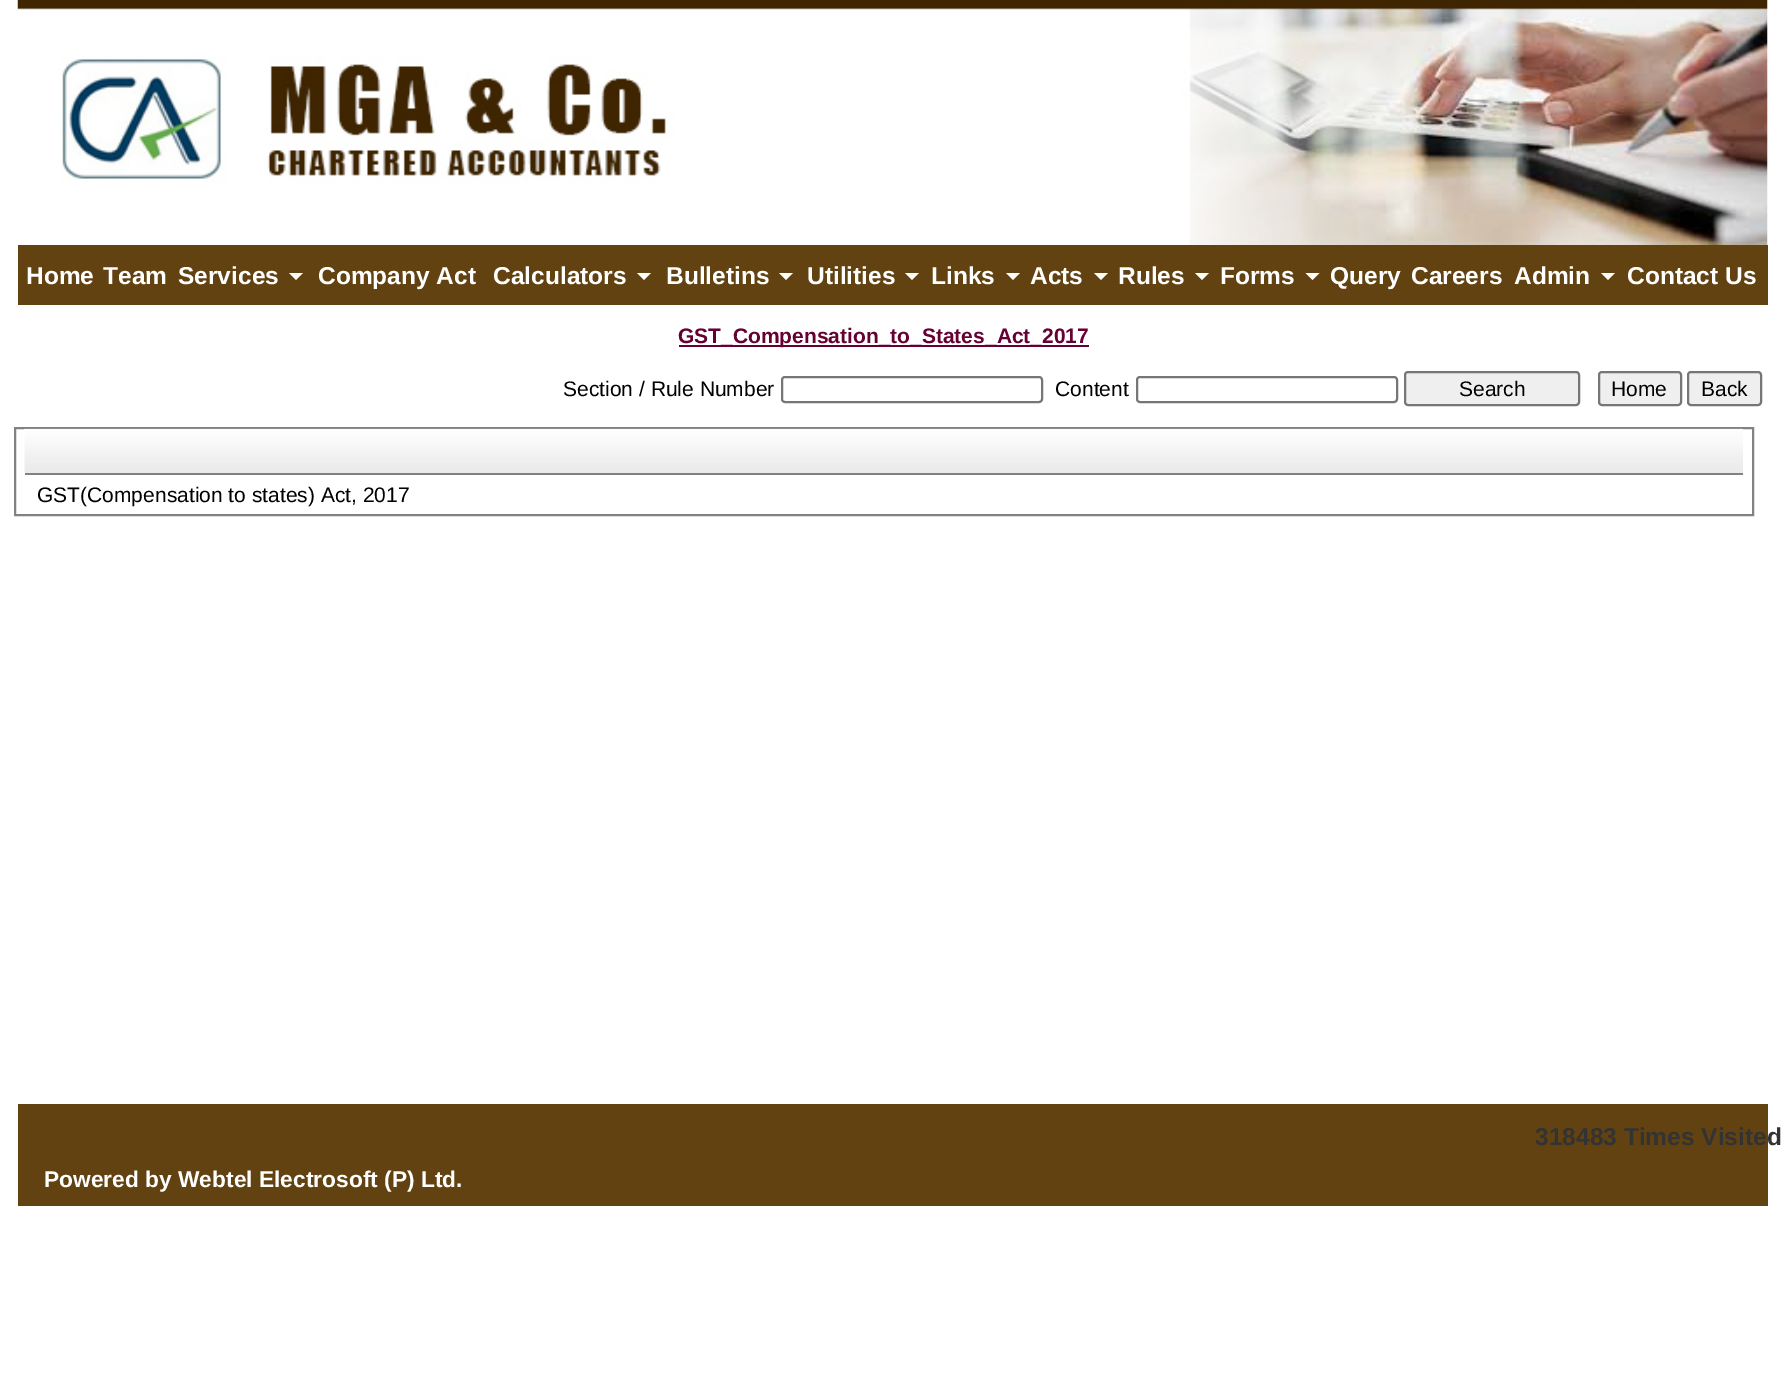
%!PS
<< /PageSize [1784 1398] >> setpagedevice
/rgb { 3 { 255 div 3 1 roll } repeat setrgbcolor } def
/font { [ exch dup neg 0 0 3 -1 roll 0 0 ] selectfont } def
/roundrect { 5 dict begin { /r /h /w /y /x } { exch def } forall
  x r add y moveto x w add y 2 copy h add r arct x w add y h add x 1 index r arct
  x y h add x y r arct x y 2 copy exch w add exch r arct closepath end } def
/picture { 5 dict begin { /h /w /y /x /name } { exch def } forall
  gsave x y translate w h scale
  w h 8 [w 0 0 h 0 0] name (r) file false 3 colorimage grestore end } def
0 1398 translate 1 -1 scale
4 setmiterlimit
255 255 255 rgb
0 0 1784 1398 rectfill
(img/1.rgb) 17 0 1751 245 picture
99 66 17 rgb
18 245 1750 60 rectfill
255 255 255 rgb
289 273 moveto 303 273 lineto 296 280 lineto closepath fill
637 273 moveto 651 273 lineto 644 280 lineto closepath fill
779 273 moveto 793 273 lineto 786 280 lineto closepath fill
905 273 moveto 919 273 lineto 912 280 lineto closepath fill
1006 273 moveto 1020 273 lineto 1013 280 lineto closepath fill
1094 273 moveto 1108 273 lineto 1101 280 lineto closepath fill
1195 273 moveto 1209 273 lineto 1202 280 lineto closepath fill
1305.5 273 moveto 1319.5 273 lineto 1312.5 280 lineto closepath fill
1601 273 moveto 1615 273 lineto 1608 280 lineto closepath fill
102 0 51 rgb
679 345 410 2 rectfill
118 118 118 rgb
2 setlinewidth
782 377 260 25 3 roundrect stroke
1137 377 260 25 3 roundrect stroke
239 239 239 rgb
1405 372 174 33 3 roundrect gsave fill grestore
118 118 118 rgb
stroke
239 239 239 rgb
1599 372 82 33 3 roundrect gsave fill grestore
118 118 118 rgb
stroke
239 239 239 rgb
1688 372 73 33 3 roundrect gsave fill grestore
118 118 118 rgb
stroke
130 130 130 rgb
15 428 1738 87 rectstroke
234 234 234 rgb
25 429 1718 44 rectfill
(img/2.rgb) 24 428 1719 45 picture
130 130 130 rgb
25 473 1718 2 rectfill
99 66 17 rgb
18 1104 1750 102 rectfill
/LiberationSans-Bold 24.5 font
255 255 255 rgb
[
  [(Home) 26 284]
  [(Team) 103 284]
  [(Services) 178 284]
  [(Company Act) 318 284]
  [(Calculators) 493 284]
  [(Bulletins) 666 284]
  [(Utilities) 807 284]
  [(Links) 931 284]
  [(Acts) 1030 284]
  [(Rules) 1118 284]
  [(Forms) 1220 284]
  [(Query) 1330 284]
  [(Careers) 1411 284]
  [(Admin) 1514 284]
  [(Contact Us) 1627 284]
] { aload pop moveto show } forall
/LiberationSans-Bold 21 font
102 0 51 rgb
678 343 moveto (GST_Compensation_to_States_Act_2017) show
/LiberationSans-Regular 21 font
0 0 0 rgb
[
  [(Section / Rule Number) 563 396]
  [(Content) 1055 396]
  [(Search) 1459 396]
  [(Home) 1611 396]
  [(Back) 1701 396]
  [(GST\(Compensation to states\) Act, 2017) 37 502]
] { aload pop moveto show } forall
/LiberationSans-Bold 24.5 font
51 51 51 rgb
1535 1145 moveto (318483 Times Visited) show
/LiberationSans-Bold 22.75 font
255 255 255 rgb
44 1187 moveto (Powered by Webtel Electrosoft \(P\) Ltd.) show
showpage
